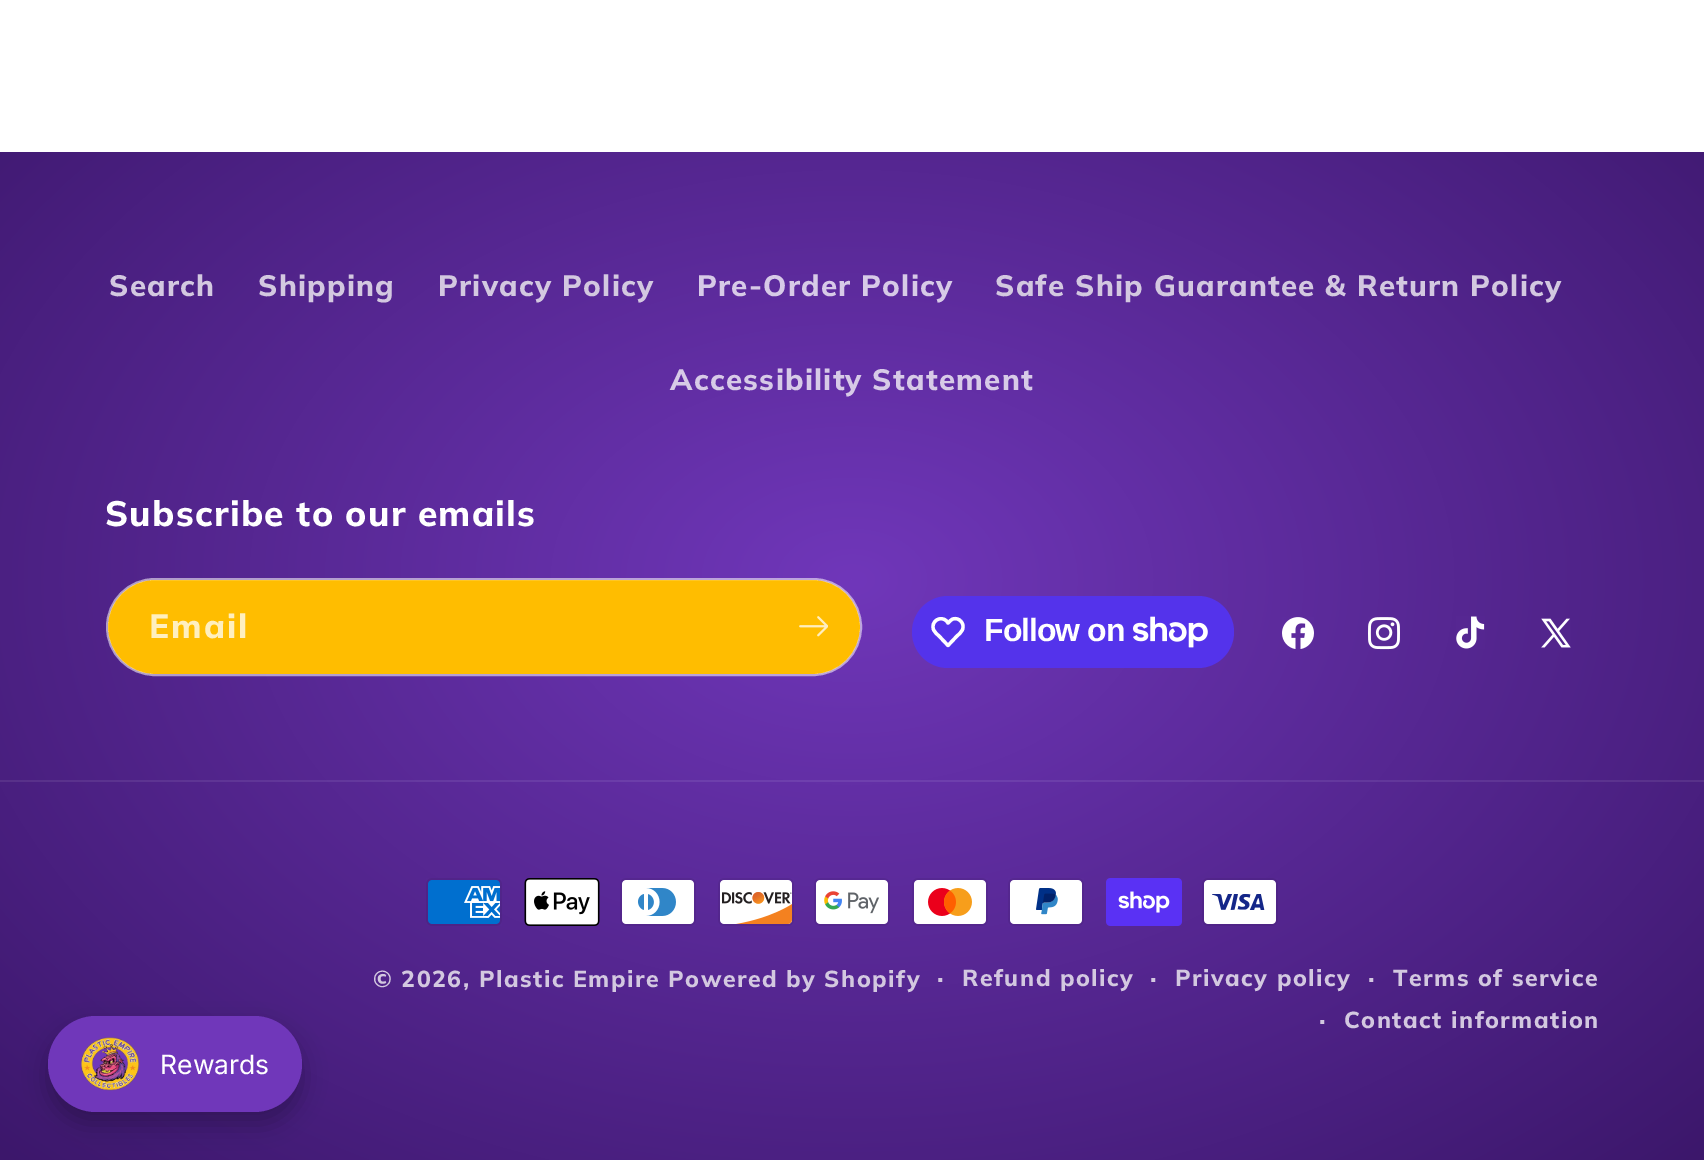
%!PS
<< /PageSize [1704 1160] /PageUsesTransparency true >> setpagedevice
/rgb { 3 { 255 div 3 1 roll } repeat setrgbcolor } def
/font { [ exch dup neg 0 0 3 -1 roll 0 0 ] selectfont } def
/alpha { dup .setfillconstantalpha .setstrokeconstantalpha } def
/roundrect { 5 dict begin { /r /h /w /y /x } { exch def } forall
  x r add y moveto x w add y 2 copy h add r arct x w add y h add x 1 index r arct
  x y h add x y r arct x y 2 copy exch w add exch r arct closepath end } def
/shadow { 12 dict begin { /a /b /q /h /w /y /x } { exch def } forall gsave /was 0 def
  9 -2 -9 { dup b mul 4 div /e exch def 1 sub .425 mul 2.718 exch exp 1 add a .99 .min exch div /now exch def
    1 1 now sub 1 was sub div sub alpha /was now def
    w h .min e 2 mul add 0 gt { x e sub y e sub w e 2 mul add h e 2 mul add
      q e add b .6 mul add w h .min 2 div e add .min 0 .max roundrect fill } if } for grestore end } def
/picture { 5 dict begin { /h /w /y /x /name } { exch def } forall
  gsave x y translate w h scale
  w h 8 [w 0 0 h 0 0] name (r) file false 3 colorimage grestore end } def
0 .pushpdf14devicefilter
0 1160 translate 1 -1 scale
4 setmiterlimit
255 255 255 rgb
0 0 1704 1160 rectfill
gsave 0 152 moveto 1704 152 lineto 1704 1160 lineto 0 1160 lineto closepath clip newpath 852 580 translate 1205 820 scale
<< /ShadingType 3 /ColorSpace /DeviceRGB /Coords [0 0 0 0 0 1] /Extend [true true] /Function << /FunctionType 2 /Domain [0 1] /C0 [0.439 0.216 0.729] /C1 [0.235 0.09 0.42] /N 1 >> >> shfill grestore
gsave 0 780 moveto 1704 780 lineto 1704 782 lineto 0 782 lineto closepath clip newpath 852 580 translate 1205 820 scale
<< /ShadingType 3 /ColorSpace /DeviceRGB /Coords [0 0 0 0 0 1] /Extend [true true] /Function << /FunctionType 2 /Domain [0 1] /C0 [0.482 0.278 0.753] /C1 [0.298 0.165 0.467] /N 1 >> >> shfill grestore
255 189 0 rgb
108 580 752 94 47 roundrect fill
0.55 alpha
255 255 255 rgb
2 setlinewidth
107 579 754 96 48 roundrect stroke
1 alpha
(img/1.rgb) 799 616 29 21 picture
84 51 235 rgb
912 596 322 72 36 roundrect fill
255 255 255 rgb
3.3 setlinewidth
1 setlinejoin
946.5 621 moveto 948 623 lineto 949.5 621.5 951 619.5 953 619 curveto 959 617 965 623.5 962.5 629.5 curveto 961.5 632.5 958.5 634.5 956.5 636.5 curveto 948 645.5 lineto 939.5 636.5 lineto 937.5 634.5 934.5 632.5 933.5 629.5 curveto 930.5 621.5 940.5 615 946.5 621 curveto closepath stroke
(img/2.rgb) 1133 616 75 32 picture
(img/3.rgb) 1282 617 32 32 picture
(img/4.rgb) 1368 617 32 33 picture
(img/5.rgb) 1456 616 29 33 picture
(img/6.rgb) 1541 618 30 30 picture
(img/7.rgb) 426 878 76 48 picture
(img/8.rgb) 524 878 76 48 picture
(img/9.rgb) 620 878 76 48 picture
(img/10.rgb) 718 878 76 48 picture
(img/11.rgb) 814 878 76 48 picture
(img/12.rgb) 912 878 76 48 picture
(img/13.rgb) 1008 878 76 48 picture
(img/14.rgb) 1106 878 76 48 picture
(img/15.rgb) 1202 878 76 48 picture
0 0 0 rgb
48 1028 254 96 48 12 0.25 shadow
112 55 186 rgb
48 1016 254 96 48 roundrect fill
(img/16.rgb) 80 1037 60 54 picture
/Muli-ExtraBold 29.4 font
211 200 224 rgb
109 296 moveto 1.25 0 (Search) ashow
258 296 moveto 1.25 0 (Shipping) ashow
438 296 moveto 1.25 0 (Privacy Policy) ashow
215 202 231 rgb
697 296 moveto 1.25 0 (Pre-Order Policy) ashow
211 200 224 rgb
995 296 moveto 1.25 0 (Safe Ship Guarantee & Return Policy) ashow
215 202 231 rgb
670 390 moveto 1.25 0 (Accessibility Statement) ashow
/Muli-ExtraBold 35.25 font
255 255 255 rgb
105 526 moveto 1.3 0 (Subscribe to our emails) ashow
/Muli-ExtraBold 33.5 font
255 239 191 rgb
149 638 moveto 2 0 (Email) ashow
/LiberationSans-Bold 32 font
255 255 255 rgb
984 641 moveto -1 0 (Follow on) ashow
/Muli-ExtraBold 23.1 font
211 200 224 rgb
373 987 moveto 1.5 0 (© 2026,) ashow
479 987 moveto 1.5 0 (Plastic Empire) ashow
668 987 moveto 1.5 0 (Powered by Shopify) ashow
/Muli-ExtraBold 25 font
937 987 moveto 1.5 0 (·) ashow
/Muli-ExtraBold 23.1 font
962 986 moveto 1.5 0 (Refund policy) ashow
/Muli-ExtraBold 25 font
1150 987 moveto 1.5 0 (·) ashow
/Muli-ExtraBold 23.1 font
1175 986 moveto 1.5 0 (Privacy policy) ashow
/Muli-ExtraBold 25 font
1368 987 moveto 1.5 0 (·) ashow
/Muli-ExtraBold 23.1 font
1393 986 moveto 1.5 0 (Terms of service) ashow
/Muli-ExtraBold 25 font
1319 1029 moveto 1.5 0 (·) ashow
/Muli-ExtraBold 23.1 font
1344 1028 moveto 1.5 0 (Contact information) ashow
/Inter-Regular 26.5 font
255 255 255 rgb
160 1074 moveto (Rewards) show
.poppdf14devicefilter showpage
